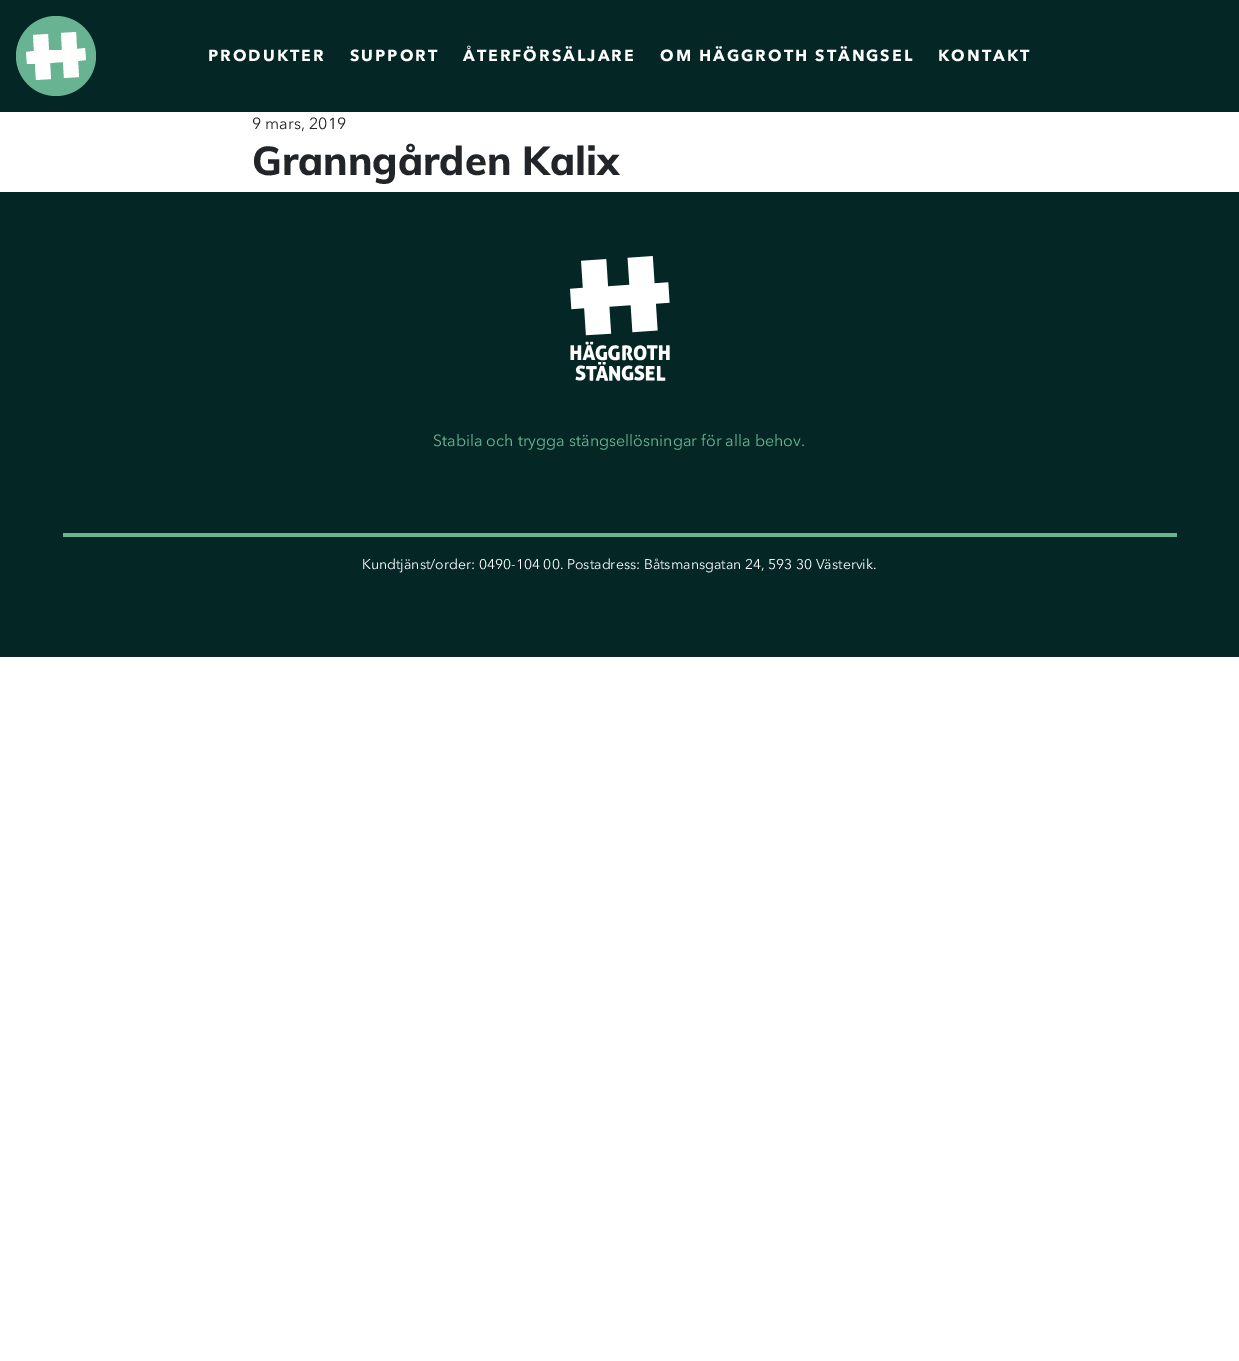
%!PS
<< /PageSize [1239 1361] >> setpagedevice
/rgb { 3 { 255 div 3 1 roll } repeat setrgbcolor } def
/font { [ exch dup neg 0 0 3 -1 roll 0 0 ] selectfont } def
/circle { newpath 0 360 arc closepath } def
/picture { 5 dict begin { /h /w /y /x /name } { exch def } forall
  gsave x y translate w h scale
  w h 8 [w 0 0 h 0 0] name (r) file false 3 colorimage grestore end } def
0 1361 translate 1 -1 scale
4 setmiterlimit
255 255 255 rgb
0 0 1239 1361 rectfill
4 39 37 rgb
0 0 1239 112 rectfill
104 180 146 rgb
56 56 40 circle fill
255 255 254 rgb
86 60 moveto 85 48 lineto 77 49 lineto 76 32 lineto 61 33 lineto 62 50 lineto 49 50 lineto 48 34 lineto 33 35 lineto 34 51 lineto 26 52 lineto 27 64 lineto 35 64 lineto 36 80 lineto 51 79 lineto 50 63 lineto 63 62 lineto 64 78 lineto 79 77 lineto 78 61 lineto 86 60 lineto eofill
4 39 37 rgb
0 192 1239 465 rectfill
(img/1.rgb) 570 256 100 125 picture
105 181 146 rgb
63 533 1114 4 rectfill
/AvenirNext-Bold 16 font
255 255 255 rgb
208 61 moveto 2 0 (PRODUKTER) ashow
350 61 moveto 2 0 (SUPPORT) ashow
463 61 moveto 2 0 (ÅTERFÖRSÄLJARE) ashow
660 61 moveto 2 0 (OM HÄGGROTH STÄNGSEL) ashow
938 61 moveto 2 0 (KONTAKT) ashow
/AvenirNext-Regular 16 font
33 37 41 rgb
252 129 moveto (9 mars, 2019) show
/Muli-ExtraBold 40 font
252 175 moveto (Granngården Kalix) show
/AvenirNext-Regular 16 font
105 181 146 rgb
433 446 moveto (Stabila och trygga stängsellösningar för alla behov.) show
/AvenirNext-Regular 14 font
255 255 255 rgb
362 569 moveto (Kundtjänst/order: 0490-104 00. Postadress: Båtsmansgatan 24, 593 30 Västervik.) show
showpage
